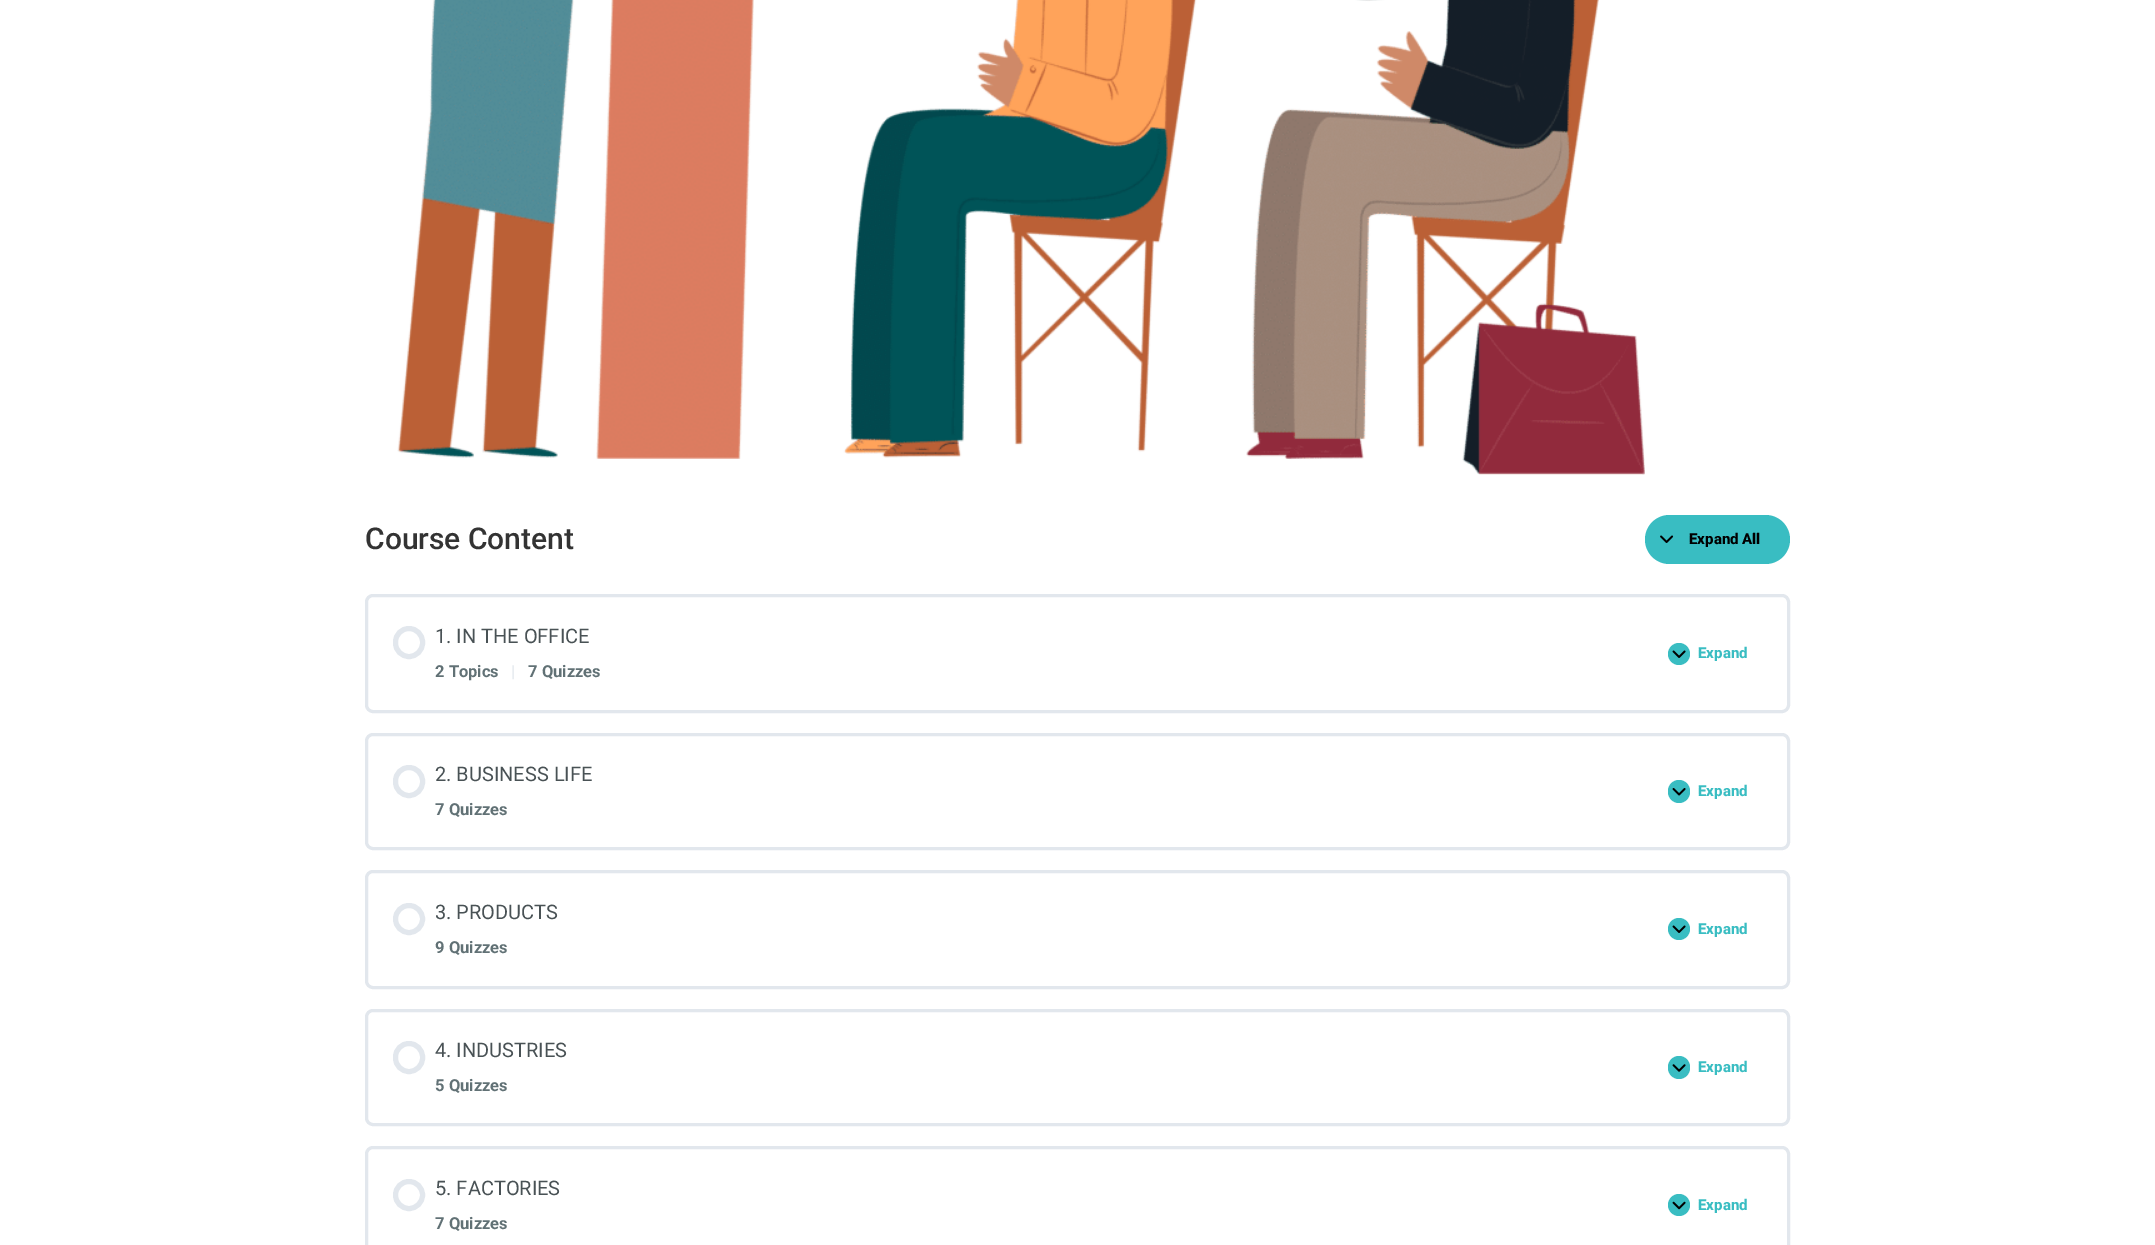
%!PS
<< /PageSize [2155 1245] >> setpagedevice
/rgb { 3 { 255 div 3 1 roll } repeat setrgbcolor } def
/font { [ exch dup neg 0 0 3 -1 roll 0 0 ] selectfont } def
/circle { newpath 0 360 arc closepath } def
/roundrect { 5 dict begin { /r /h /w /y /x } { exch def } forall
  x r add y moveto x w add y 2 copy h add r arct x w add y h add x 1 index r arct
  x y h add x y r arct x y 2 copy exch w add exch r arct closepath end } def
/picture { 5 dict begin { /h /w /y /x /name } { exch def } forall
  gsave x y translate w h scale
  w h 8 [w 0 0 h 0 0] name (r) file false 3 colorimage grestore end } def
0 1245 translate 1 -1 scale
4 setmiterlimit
255 255 255 rgb
0 0 2155 1245 rectfill
(img/1.rgb) 397 0 1248 475 picture
57 189 194 rgb
1645 515 145 49 24.5 roundrect fill
(img/2.rgb) 1660 535 14 8 picture
226 231 237 rgb
3 setlinewidth
366.5 595.5 1422 116 6.5 roundrect stroke
5 setlinewidth
395.5 628.5 27 28 13.5 roundrect stroke
57 189 194 rgb
1679 654 11 circle fill
(img/3.rgb) 1672 650 14 8 picture
226 231 237 rgb
3 setlinewidth
366.5 734.5 1422 114 6.5 roundrect stroke
5 setlinewidth
395.5 767.5 27 28 13.5 roundrect stroke
57 189 194 rgb
1668 780 22 23 11 roundrect fill
(img/4.rgb) 1672 788 14 8 picture
226 231 237 rgb
3 setlinewidth
366.5 871.5 1422 116 6.5 roundrect stroke
5 setlinewidth
409 919 13.5 circle stroke
57 189 194 rgb
1679 929 11 circle fill
(img/3.rgb) 1672 925 14 8 picture
226 231 237 rgb
3 setlinewidth
366.5 1010.5 1422 114 6.5 roundrect stroke
5 setlinewidth
395.5 1043.5 27 28 13.5 roundrect stroke
57 189 194 rgb
1668 1056 22 23 11 roundrect fill
(img/5.rgb) 1672 1064 14 8 picture
226 231 237 rgb
3 setlinewidth
366.5 1147.5 1422 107 6.5 roundrect stroke
5 setlinewidth
409 1195 13.5 circle stroke
57 189 194 rgb
1679 1205 11 circle fill
(img/6.rgb) 1672 1201 14 9 picture
/Roboto-Medium 30 font
51 51 51 rgb
365 549 moveto (Course Content) show
/Roboto-ExtraBold 15 font
0 0 0 rgb
1689 544 moveto (Expand All) show
/Roboto-Regular 20 font
73 82 85 rgb
435 643 moveto (1. IN THE OFFICE) show
/Roboto-Bold 16.5 font
97 113 117 rgb
435 677 moveto (2 Topics) show
226 231 237 rgb
511 677 moveto (|) show
97 113 117 rgb
528 677 moveto (7 Quizzes) show
/Roboto-ExtraBold 15 font
57 189 194 rgb
1698 658 moveto (Expand) show
/Roboto-Regular 20 font
73 82 85 rgb
435 781 moveto (2. BUSINESS LIFE) show
/Roboto-Bold 16.5 font
97 113 117 rgb
435 815 moveto (7 Quizzes) show
/Roboto-ExtraBold 15 font
57 189 194 rgb
1698 796 moveto (Expand) show
/Roboto-Regular 20 font
73 82 85 rgb
435 919 moveto (3. PRODUCTS) show
/Roboto-Bold 16.5 font
97 113 117 rgb
435 953 moveto (9 Quizzes) show
/Roboto-ExtraBold 15 font
57 189 194 rgb
1698 934 moveto (Expand) show
/Roboto-Regular 20 font
73 82 85 rgb
435 1057 moveto (4. INDUSTRIES) show
/Roboto-Bold 16.5 font
97 113 117 rgb
435 1091 moveto (5 Quizzes) show
/Roboto-ExtraBold 15 font
57 189 194 rgb
1698 1072 moveto (Expand) show
/Roboto-Regular 20 font
73 82 85 rgb
435 1195 moveto (5. FACTORIES) show
/Roboto-Bold 16.5 font
97 113 117 rgb
435 1229 moveto (7 Quizzes) show
/Roboto-ExtraBold 15 font
57 189 194 rgb
1698 1210 moveto (Expand) show
showpage
